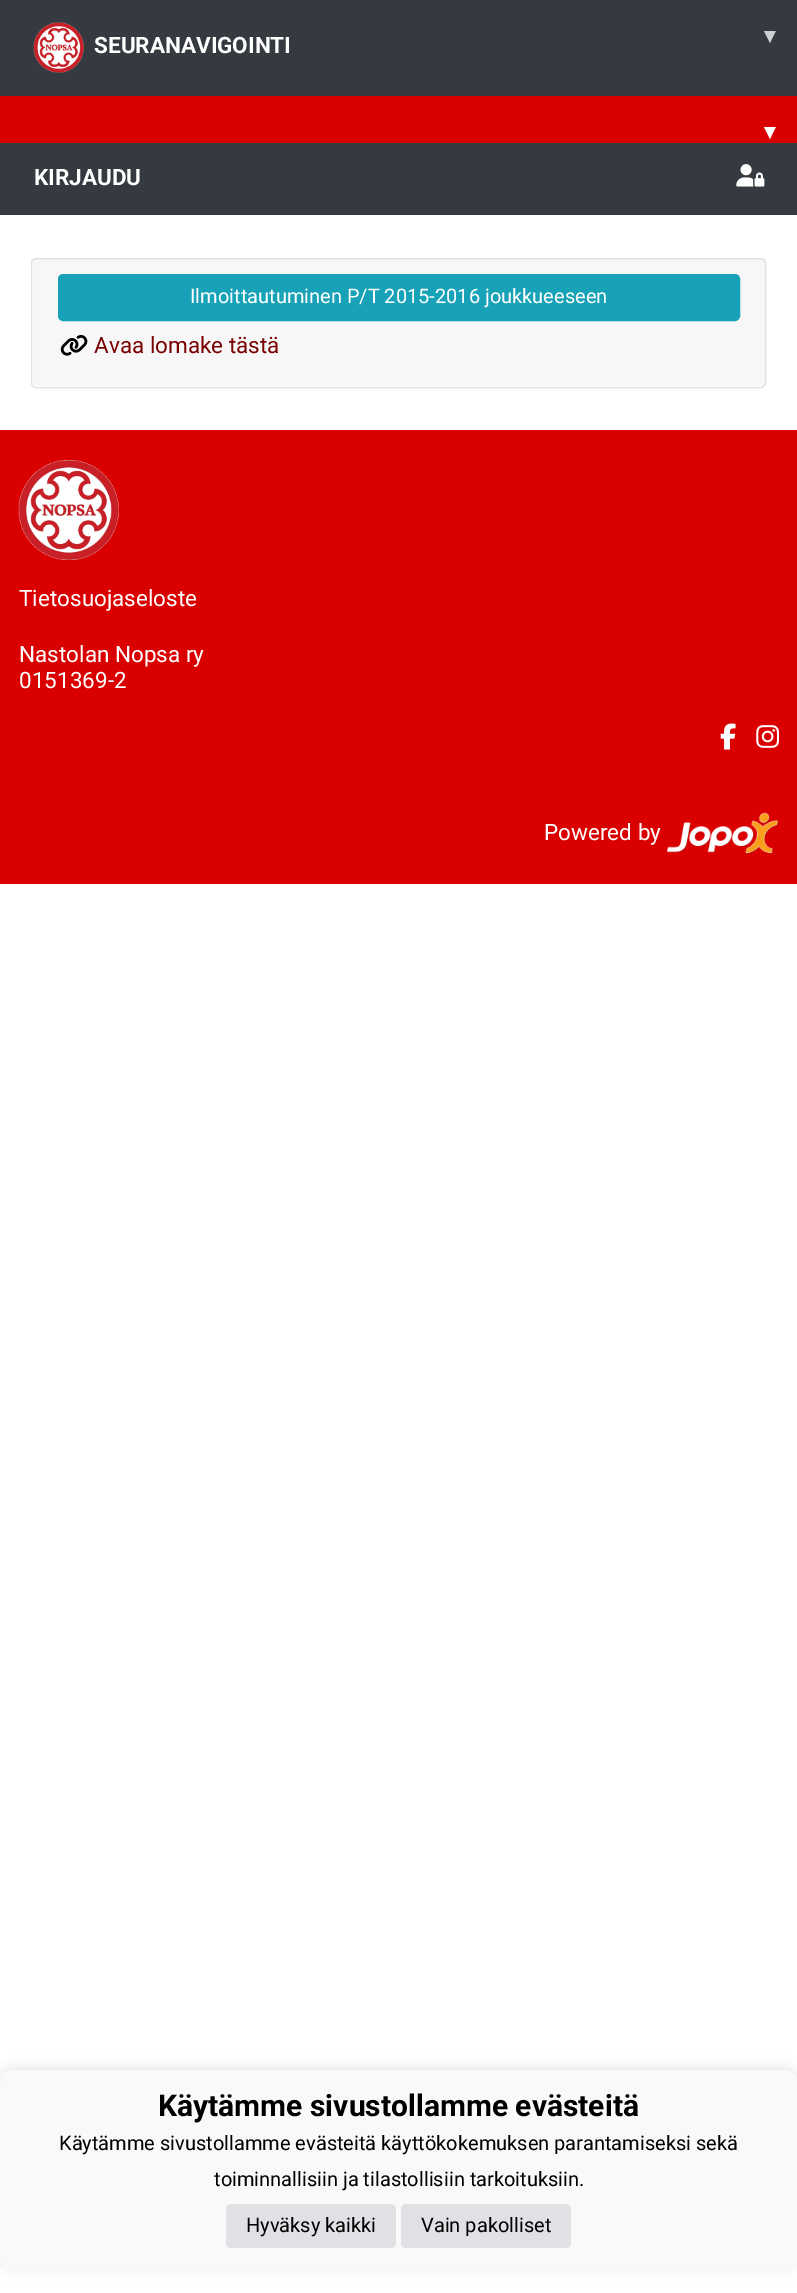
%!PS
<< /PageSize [797 2293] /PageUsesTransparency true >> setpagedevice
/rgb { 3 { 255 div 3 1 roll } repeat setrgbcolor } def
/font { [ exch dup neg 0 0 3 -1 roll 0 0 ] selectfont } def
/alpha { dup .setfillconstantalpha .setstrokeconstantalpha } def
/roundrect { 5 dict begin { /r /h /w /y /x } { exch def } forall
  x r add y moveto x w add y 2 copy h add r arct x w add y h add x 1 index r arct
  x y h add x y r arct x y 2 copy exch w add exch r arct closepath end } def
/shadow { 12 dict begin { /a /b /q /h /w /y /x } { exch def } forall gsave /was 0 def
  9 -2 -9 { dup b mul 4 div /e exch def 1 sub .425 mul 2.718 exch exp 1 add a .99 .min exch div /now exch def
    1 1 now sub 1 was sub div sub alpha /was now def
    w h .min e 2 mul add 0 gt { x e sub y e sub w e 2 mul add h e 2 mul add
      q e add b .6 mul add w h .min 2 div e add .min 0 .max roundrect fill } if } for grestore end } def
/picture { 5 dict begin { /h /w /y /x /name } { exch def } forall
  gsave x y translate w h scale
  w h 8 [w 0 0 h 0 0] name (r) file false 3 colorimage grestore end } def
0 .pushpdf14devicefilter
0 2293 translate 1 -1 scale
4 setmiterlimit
255 255 255 rgb
0 0 797 2293 rectfill
52 58 64 rgb
0 0 797 95 rectfill
49 55 61 rgb
0 95 797 1 rectfill
(img/1.rgb) 33 22 51 51 picture
[
  [0 96 797 47 219 0 0]
  [0 141 797 1 208 0 0]
  [0 143 797 71 52 58 64]
  [0 214 797 1 49 55 61]
] { aload pop rgb rectfill } forall
(img/2.rgb) 736 164 29 23 picture
223 223 223 rgb
31.5 258.5 734 129 4.5 roundrect stroke
0.03 alpha
0 0 0 rgb
33 259 732 127 rectfill
1 alpha
23 162 184 rgb
58.5 274.5 681 46 4.5 roundrect gsave fill grestore
stroke
(img/3.rgb) 60 335 28 21 picture
219 0 0 rgb
0 430 797 454 rectfill
(img/4.rgb) 18 460 101 100 picture
(img/5.rgb) 720 723 16 27 picture
(img/6.rgb) 756 725 23 23 picture
(img/7.rgb) 667 812 112 42 picture
0 0 0 rgb
0 2068 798 201 13 6 0.1 shadow
250 248 248 rgb
0 2070 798 201 13 roundrect fill
223 225 229 rgb
226 2204 170 44 5 roundrect fill
401 2204 170 44 5 roundrect fill
/Roboto-Bold 22.5 font
255 255 255 rgb
94 53 moveto (SEURANAVIGOINTI) show
/DejaVuSans-Bold 22.5 font
204 206 207 rgb
764 43 moveto (▾) show
255 255 255 rgb
764 139 moveto (▾) show
/Roboto-Bold 22.5 font
34 185 moveto (KIRJAUDU) show
/Roboto-Regular 20 font
190 303 moveto (Ilmoittautuminen P/T 2015-2016 joukkueeseen) show
/Roboto-Regular 22.5 font
121 1 1 rgb
94 353 moveto (Avaa lomake tästä) show
255 255 255 rgb
[
  [(Tietosuojaseloste) 19 606]
  [(Nastolan Nopsa ry) 19 662]
  [(0151369-2) 19 688]
  [(Powered by) 544 840]
] { aload pop moveto show } forall
/Roboto-Bold 30 font
0 0 0 rgb
158 2116 moveto (Käytämme sivustollamme evästeitä) show
/Roboto-Regular 20 font
[
  [(Käytämme sivustollamme evästeitä käyttökokemuksen parantamiseksi sekä) 59 2150]
  [(toiminnallisiin ja tilastollisiin tarkoituksiin.) 214 2186]
  [(Hyväksy kaikki) 246 2232]
  [(Vain pakolliset) 421 2232]
] { aload pop moveto show } forall
.poppdf14devicefilter showpage
